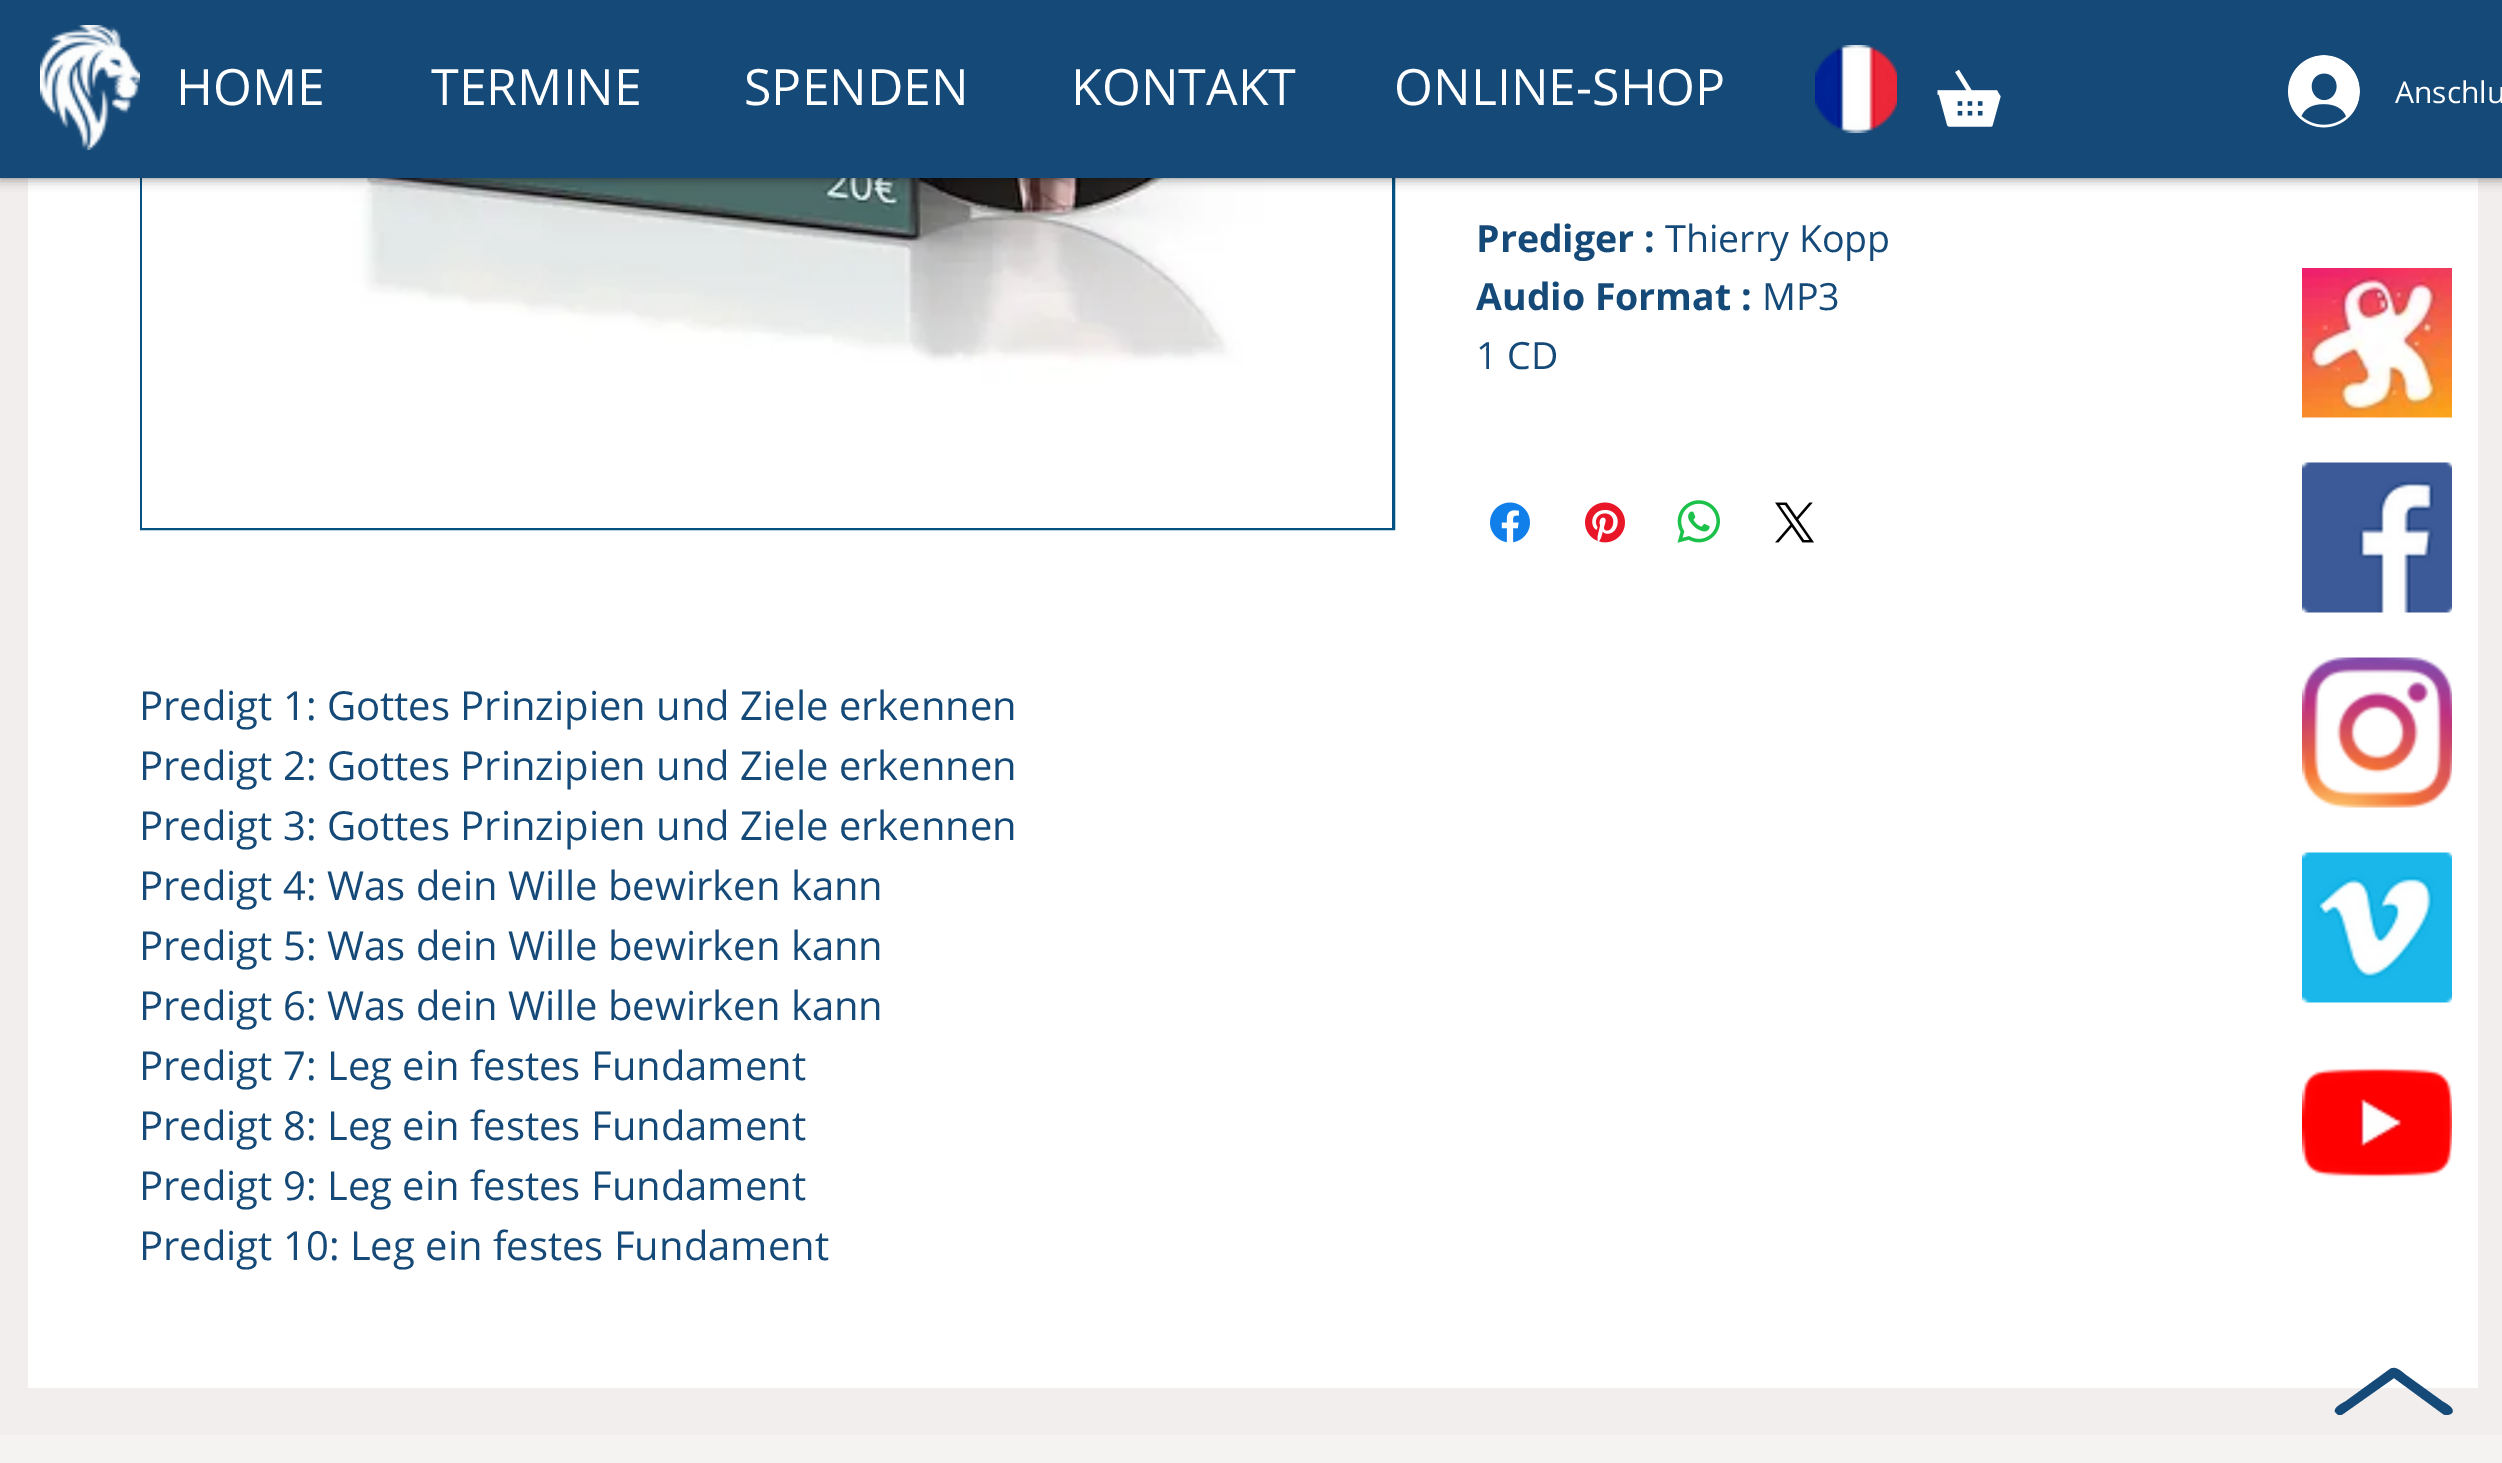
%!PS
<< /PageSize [2502 1463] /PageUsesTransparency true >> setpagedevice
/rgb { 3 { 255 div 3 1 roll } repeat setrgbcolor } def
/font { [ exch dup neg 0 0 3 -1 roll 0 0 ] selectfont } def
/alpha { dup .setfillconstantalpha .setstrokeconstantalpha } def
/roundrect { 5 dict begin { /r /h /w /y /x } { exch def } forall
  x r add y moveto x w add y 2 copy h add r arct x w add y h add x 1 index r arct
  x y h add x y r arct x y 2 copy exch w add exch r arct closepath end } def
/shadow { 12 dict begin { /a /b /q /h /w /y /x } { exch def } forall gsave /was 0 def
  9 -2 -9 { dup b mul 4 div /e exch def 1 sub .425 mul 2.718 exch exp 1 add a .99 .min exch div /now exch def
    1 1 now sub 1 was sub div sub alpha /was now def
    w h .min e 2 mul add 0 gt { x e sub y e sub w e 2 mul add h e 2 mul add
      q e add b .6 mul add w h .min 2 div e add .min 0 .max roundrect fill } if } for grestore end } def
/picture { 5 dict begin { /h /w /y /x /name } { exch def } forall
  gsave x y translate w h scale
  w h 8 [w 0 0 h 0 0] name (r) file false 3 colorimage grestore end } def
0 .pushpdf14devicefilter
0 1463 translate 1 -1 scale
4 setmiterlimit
242 238 237 rgb
0 0 2502 1463 rectfill
255 255 255 rgb
28 178 2450 1210 rectfill
4 81 132 rgb
3 setlinewidth
141.5 -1.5 1252 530 rectstroke
(img/9.rgb) 142 178 1250 350 picture
0 0 0 rgb
0 0 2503 178 0 6 0.5 shadow
21 73 120 rgb
0 0 2502 178 rectfill
(img/1.rgb) 40 25 100 125 picture
(img/2.rgb) 1815 45 82 88 picture
(img/3.rgb) 1937 69 64 58 picture
(img/4.rgb) 2288 55 72 73 picture
(img/5.rgb) 1490 502 40 41 picture
(img/6.rgb) 1585 502 40 41 picture
(img/7.rgb) 1677 500 43 43 picture
(img/8.rgb) 1775 502 39 41 picture
(img/10.rgb) 2302 268 150 150 picture
(img/11.rgb) 2302 462 150 151 picture
(img/12.rgb) 2302 657 150 151 picture
(img/13.rgb) 2302 852 150 151 picture
(img/14.rgb) 2302 1067 150 111 picture
2447 1415 moveto 2446 1415 2444 1415 2443 1414 curveto 2394 1378 lineto 2343 1414 lineto 2342 1415 2340 1415 2338 1415 curveto 2337 1414 2336 1413 2335 1412 curveto 2333 1407 2345 1402 2346 1401 curveto 2390 1369 lineto 2396 1365 2403 1373 2406 1375 curveto 2442 1401 lineto 2443 1402 2456 1408 2452 1413 curveto 2451 1414 2449 1415 2447 1415 curveto closepath fill
245 242 242 rgb
0 1435 2502 28 rectfill
/OpenSans-Regular 50 font
255 255 255 rgb
[
  [(HOME) 176 105]
  [(TERMINE) 431 105]
  [(SPENDEN) 744 105]
  [(KONTAKT) 1071 105]
  [(ONLINE-SHOP) 1394 105]
] { aload pop moveto show } forall
/OpenSans-Regular 30 font
2395 103 moveto (Anschlu) show
/OpenSans-Bold 37.5 font
21 73 120 rgb
1476 252 moveto (Prediger :) show
/OpenSans-Regular 37.5 font
1665 252 moveto (Thierry Kopp) show
/OpenSans-Bold 37.5 font
1476 310 moveto (Audio Format :) show
/OpenSans-Regular 37.5 font
1762 310 moveto (MP3) show
1476 369 moveto (1 CD) show
/OpenSans-Regular 40 font
[
  [(Predigt 1: Gottes Prinzipien und Ziele erkennen) 139 720]
  [(Predigt 2: Gottes Prinzipien und Ziele erkennen) 139 780]
  [(Predigt 3: Gottes Prinzipien und Ziele erkennen) 139 840]
  [(Predigt 4: Was dein Wille bewirken kann) 139 900]
  [(Predigt 5: Was dein Wille bewirken kann) 139 960]
  [(Predigt 6: Was dein Wille bewirken kann) 139 1020]
  [(Predigt 7: Leg ein festes Fundament) 139 1080]
  [(Predigt 8: Leg ein festes Fundament) 139 1140]
  [(Predigt 9: Leg ein festes Fundament) 139 1200]
  [(Predigt 10: Leg ein festes Fundament) 139 1260]
] { aload pop moveto show } forall
.poppdf14devicefilter showpage
